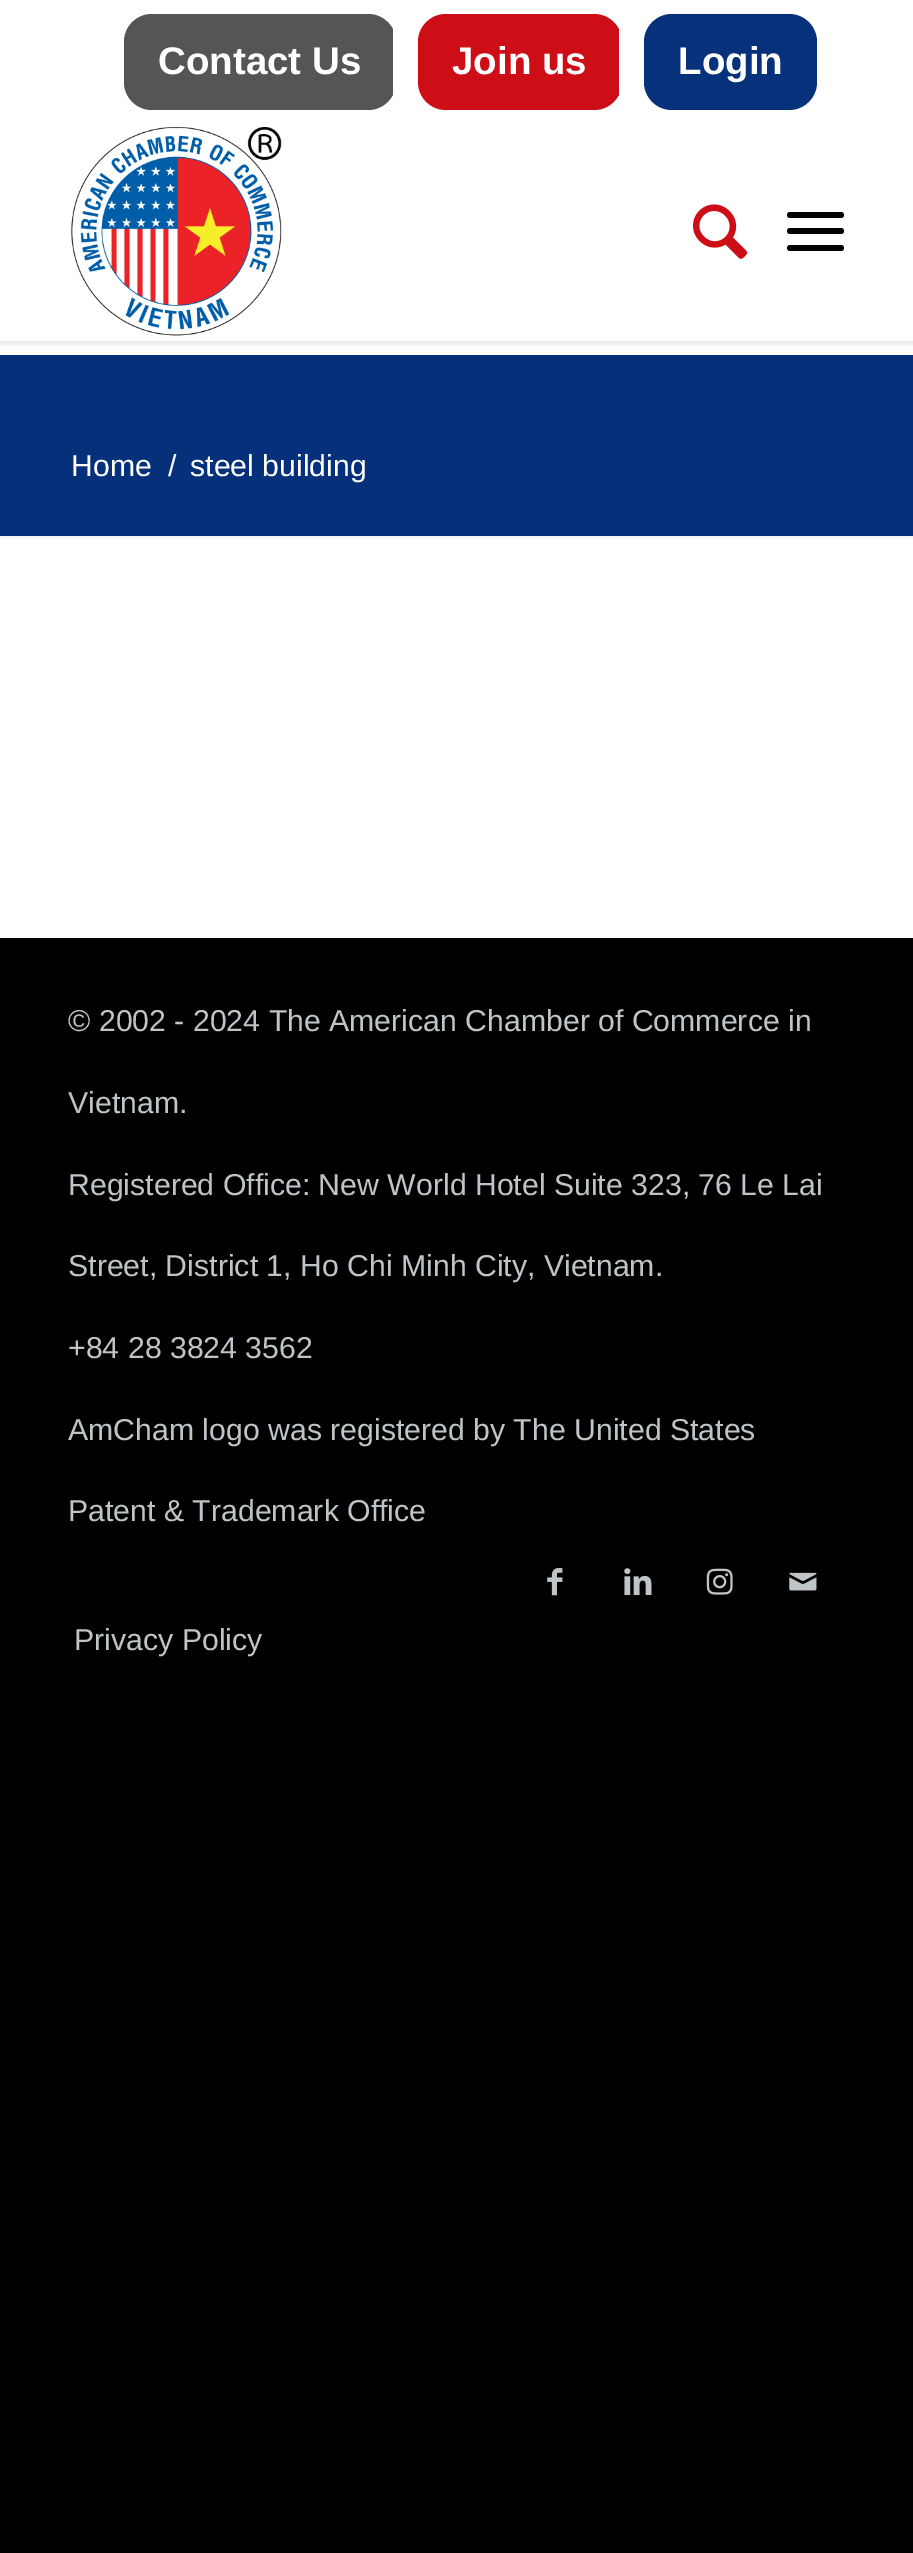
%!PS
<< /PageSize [913 2553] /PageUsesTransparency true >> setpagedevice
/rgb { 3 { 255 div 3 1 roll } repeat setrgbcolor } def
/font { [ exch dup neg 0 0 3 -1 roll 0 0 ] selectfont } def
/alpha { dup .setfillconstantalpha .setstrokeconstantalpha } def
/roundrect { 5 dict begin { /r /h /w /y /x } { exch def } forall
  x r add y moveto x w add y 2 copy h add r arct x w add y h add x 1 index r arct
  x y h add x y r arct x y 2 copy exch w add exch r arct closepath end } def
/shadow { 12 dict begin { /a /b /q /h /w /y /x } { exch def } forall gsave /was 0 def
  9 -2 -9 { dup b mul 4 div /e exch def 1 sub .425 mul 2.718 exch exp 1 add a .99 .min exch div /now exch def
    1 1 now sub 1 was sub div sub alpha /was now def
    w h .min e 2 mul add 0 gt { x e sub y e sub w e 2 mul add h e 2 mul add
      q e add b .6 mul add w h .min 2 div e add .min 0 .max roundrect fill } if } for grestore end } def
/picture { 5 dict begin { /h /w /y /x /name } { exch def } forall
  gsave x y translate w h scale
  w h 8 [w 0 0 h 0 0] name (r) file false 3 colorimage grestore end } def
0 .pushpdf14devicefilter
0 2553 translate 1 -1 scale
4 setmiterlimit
0 0 0 rgb
0 0 913 2553 rectfill
255 255 255 rgb
0 0 913 938 rectfill
gsave
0 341 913 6 rectclip
0 0 0 rgb
-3 -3 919 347 0 3 0.1 shadow
grestore
85 85 85 rgb
124 14 272 96 28 roundrect fill
255 255 255 rgb
393 28 3 68 rectfill
206 14 23 rgb
418 14 204 96 28 roundrect fill
255 255 255 rgb
619 28 3 68 rectfill
7 49 122 rgb
644 14 173 96 28 roundrect fill
(img/1.rgb) 71 127 211 209 picture
(img/2.rgb) 693 204 55 55 picture
0 0 0 rgb
787 228 57 6 3 roundrect fill
787 212 57 6 3 roundrect fill
787 245 57 6 3 roundrect fill
6 49 122 rgb
0 355 913 181 rectfill
248 248 248 rgb
0 536 913 3 rectfill
(img/3.rgb) 547 1568 16 28 picture
(img/4.rgb) 624 1568 28 27 picture
(img/5.rgb) 706 1568 27 27 picture
(img/6.rgb) 789 1572 28 19 picture
/LiberationSans-Bold 38.5 font
255 255 255 rgb
[
  [(Contact Us) 158 74]
  [(Join us) 452 74]
  [(Login) 678 74]
] { aload pop moveto show } forall
/LiberationSans-Regular 30.25 font
[
  [(Home) 71 476]
  [(/) 168 476]
  [(steel building) 190 476]
] { aload pop moveto show } forall
190 196 199 rgb
[
  [(© 2002 - 2024 The American Chamber of Commerce in) 68 1031]
  [(Vietnam.) 68 1113]
  [(Registered Office: New World Hotel Suite 323, 76 Le Lai) 68 1195]
  [(Street, District 1, Ho Chi Minh City, Vietnam.) 68 1276]
  [(+84 28 3824 3562) 68 1358]
  [(AmCham logo was registered by The United States) 68 1440]
  [(Patent & Trademark Office) 68 1521]
  [(Privacy Policy) 74 1650]
] { aload pop moveto show } forall
.poppdf14devicefilter showpage
